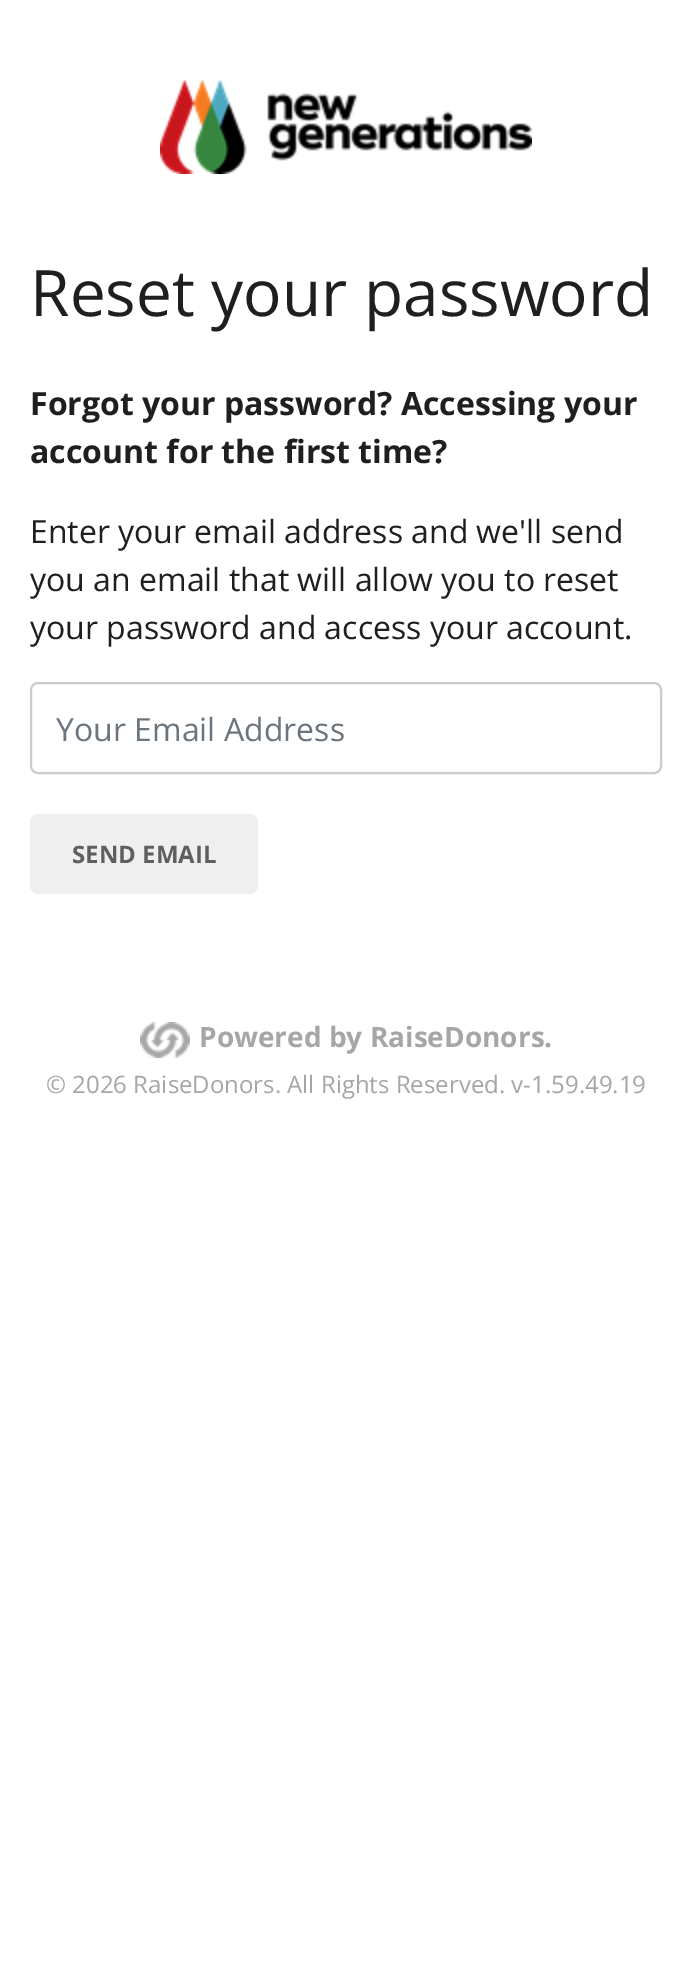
%!PS
<< /PageSize [692 1984] >> setpagedevice
/rgb { 3 { 255 div 3 1 roll } repeat setrgbcolor } def
/font { [ exch dup neg 0 0 3 -1 roll 0 0 ] selectfont } def
/roundrect { 5 dict begin { /r /h /w /y /x } { exch def } forall
  x r add y moveto x w add y 2 copy h add r arct x w add y h add x 1 index r arct
  x y h add x y r arct x y 2 copy exch w add exch r arct closepath end } def
/picture { 5 dict begin { /h /w /y /x /name } { exch def } forall
  gsave x y translate w h scale
  w h 8 [w 0 0 h 0 0] name (r) file false 3 colorimage grestore end } def
0 1984 translate 1 -1 scale
4 setmiterlimit
255 255 255 rgb
0 0 692 1984 rectfill
(img/1.rgb) 160 80 372 94 picture
204 204 204 rgb
2 setlinewidth
31 683 630 90 7 roundrect stroke
239 239 239 rgb
30 814 228 80 8 roundrect fill
(img/2.rgb) 140 1022 50 36 picture
/OpenSans-Regular 64 font
31 31 31 rgb
30 316 moveto (Reset your password) show
/OpenSans-Bold 32 font
30 415 moveto (Forgot your password? Accessing your) show
30 463 moveto (account for the first time?) show
/OpenSans-Regular 32 font
[
  [(Enter your email address and we'll send) 30 543]
  [(you an email that will allow you to reset) 30 591]
  [(your password and access your account.) 30 639]
] { aload pop moveto show } forall
108 117 125 rgb
56 741 moveto (Your Email Address) show
/OpenSans-Bold 24 font
95 95 95 rgb
72 863 moveto (SEND EMAIL) show
/OpenSans-Bold 28 font
166 166 166 rgb
199 1047 moveto (Powered by RaiseDonors.) show
/OpenSans-Regular 24 font
46 1093 moveto (© 2026 RaiseDonors. All Rights Reserved. v-1.59.49.19) show
showpage
